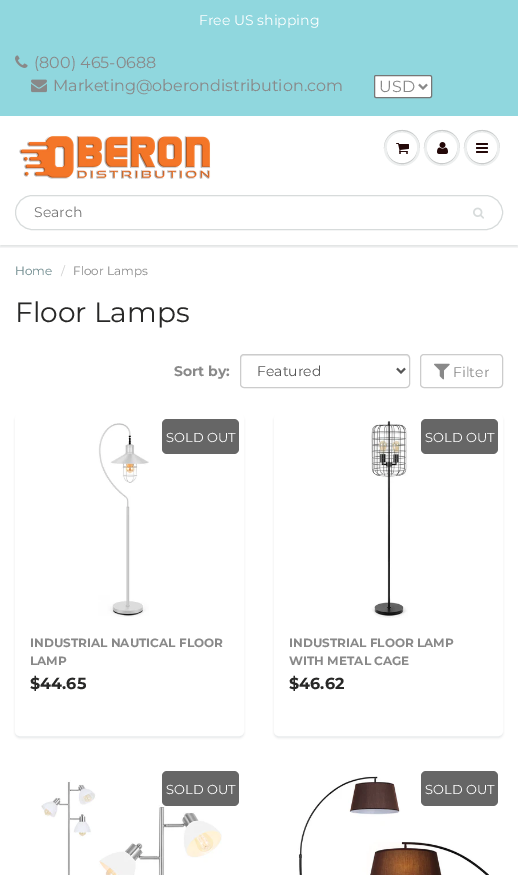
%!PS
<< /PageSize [518 875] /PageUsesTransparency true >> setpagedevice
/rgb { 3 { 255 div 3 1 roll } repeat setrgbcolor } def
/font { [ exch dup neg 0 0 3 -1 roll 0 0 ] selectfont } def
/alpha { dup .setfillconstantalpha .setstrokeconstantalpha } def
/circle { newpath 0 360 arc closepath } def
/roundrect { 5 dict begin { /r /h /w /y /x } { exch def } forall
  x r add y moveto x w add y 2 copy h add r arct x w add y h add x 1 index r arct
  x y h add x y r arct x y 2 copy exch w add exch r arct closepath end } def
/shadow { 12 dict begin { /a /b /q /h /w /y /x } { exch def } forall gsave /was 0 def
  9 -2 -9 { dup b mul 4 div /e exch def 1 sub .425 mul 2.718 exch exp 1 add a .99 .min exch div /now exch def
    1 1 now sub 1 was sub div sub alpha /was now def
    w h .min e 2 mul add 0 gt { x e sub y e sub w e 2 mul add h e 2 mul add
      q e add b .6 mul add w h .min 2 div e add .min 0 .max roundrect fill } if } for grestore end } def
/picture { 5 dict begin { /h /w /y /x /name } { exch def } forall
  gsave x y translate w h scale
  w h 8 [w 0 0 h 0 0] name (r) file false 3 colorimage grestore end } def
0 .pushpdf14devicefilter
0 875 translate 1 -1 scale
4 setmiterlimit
255 255 255 rgb
0 0 518 875 rectfill
144 215 222 rgb
0 0 518 116 rectfill
(img/1.rgb) 15 55 13 13 picture
(img/2.rgb) 31 79 16 14 picture
255 255 255 rgb
374.5 75.5 57 22 1.5 roundrect gsave fill grestore
118 118 118 rgb
stroke
137 137 137 rgb
2 setlinewidth
419 84.5 moveto 423 88.5 lineto 427 84.5 lineto stroke
gsave
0 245 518 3 rectclip
11 25 28 rgb
0 118 518 129 0 1 0.12 shadow
grestore
(img/3.rgb) 19 135 192 44 picture
237 239 239 rgb
402 148 18 circle fill
201 203 203 rgb
402 131 moveto 414 131 420 139.5 420 148.5 curveto 420 145 419 141 417 138 curveto 407 123 383.5 130.5 384 148.5 curveto 384 139.5 390 131 402 131 curveto closepath fill
387 148.5 moveto 386.5 163.5 406 170 414.5 157.5 curveto 416 155 417 151.5 417 148.5 curveto 416.5 167.5 387.5 167.5 387 148.5 curveto closepath fill
255 255 255 rgb
402 148 15 circle fill
402 134 moveto 412 134 417 141 417 148.5 curveto 417 145.5 416 142 414.5 139.5 curveto 406 127 386.5 133.5 387 148.5 curveto 387 141 392 134 402 134 curveto closepath fill
(img/4.rgb) 396 143 13 11 picture
237 239 239 rgb
442 148 18 circle fill
201 203 203 rgb
442 131 moveto 454 131 460 139.5 460 148.5 curveto 460 145 459 141 457 138 curveto 447 123 423.5 130.5 424 148.5 curveto 424 139.5 430 131 442 131 curveto closepath fill
427 148.5 moveto 427 151.5 428 155 429.5 157.5 curveto 438 170 457.5 163.5 457 148.5 curveto 456.5 167.5 427.5 167.5 427 148.5 curveto closepath fill
255 255 255 rgb
442 148 15 circle fill
442 134 moveto 452 134 457 141 457 148.5 curveto 457 145.5 456 142 454.5 139.5 curveto 446 127 426.5 133.5 427 148.5 curveto 427 141 432 134 442 134 curveto closepath fill
(img/5.rgb) 437 142 11 12 picture
237 239 239 rgb
482 148 18 circle fill
201 203 203 rgb
482 131 moveto 494 131 500 139.5 500 148.5 curveto 500 145 499 141 497 138 curveto 487 123 463.5 130.5 464 148.5 curveto 464 139.5 470 131 482 131 curveto closepath fill
467 148.5 moveto 466.5 163.5 486 170 494.5 157.5 curveto 496 155 497 151.5 497 148.5 curveto 496.5 167.5 467.5 167.5 467 148.5 curveto closepath fill
255 255 255 rgb
482 148 15 circle fill
482 134 moveto 492 134 497 141 497 148.5 curveto 497 145.5 496 142 494.5 139.5 curveto 486 127 466.5 133.5 467 148.5 curveto 467 141 472 134 482 134 curveto closepath fill
(img/6.rgb) 476 143 12 10 picture
215 219 219 rgb
1 setlinewidth
15.5 195.5 487 34 17 roundrect stroke
(img/7.rgb) 473 207 11 12 picture
236 236 236 rgb
244 356 moveto 406 356 lineto 408 356 409 357 409 359 curveto 409 358 lineto 409 356 408 355 406 355 curveto 244 355 lineto 242 355 241 356 241 358 curveto 241 359 lineto 241 357 242 356 244 356 curveto closepath fill
204 204 204 rgb
240.5 354.5 169 33 3.5 roundrect stroke
85 85 85 rgb
2 setlinewidth
397 368.5 moveto 401 372.5 lineto 405 368.5 lineto stroke
204 204 204 rgb
1 setlinewidth
420.5 354.5 82 33 3.5 roundrect stroke
(img/8.rgb) 434 363 16 17 picture
11 25 28 rgb
15 416 229 322 5 1 0.1 shadow
255 255 255 rgb
17.5 416.5 224 317 2.5 roundrect gsave fill grestore
5 setlinewidth
stroke
(img/9.rgb) 98 423 51 194 picture
102 102 102 rgb
162 419 77 35 5 roundrect fill
11 25 28 rgb
274 416 229 322 5 1 0.1 shadow
255 255 255 rgb
276.5 416.5 224 317 2.5 roundrect gsave fill grestore
stroke
(img/10.rgb) 371 421 37 197 picture
102 102 102 rgb
421 419 77 35 5 roundrect fill
(img/11.rgb) 41 780 181 95 picture
162 771 77 35 5 roundrect fill
(img/12.rgb) 298 776 191 99 picture
421 771 77 35 5 roundrect fill
/Montserrat-Regular 14 font
255 255 255 rgb
199 25 moveto (Free US shipping) show
/Montserrat-Regular 16 font
137 137 137 rgb
[
  [(\(800\) 465-0688) 34 68]
  [(Marketing@oberondistribution.com) 53 91]
  [(USD) 379 92]
] { aload pop moveto show } forall
/Montserrat-Regular 14 font
117 117 117 rgb
34 217 moveto (Search) show
/Montserrat-Regular 12 font
107 135 138 rgb
15 275 moveto (Home) show
204 204 204 rgb
61 275 moveto (/) show
137 137 137 rgb
73 275 moveto (Floor Lamps) show
/Montserrat-Regular 28 font
40 40 39 rgb
15 322 moveto (Floor Lamps) show
/Montserrat-Bold 14 font
137 137 137 rgb
174 376 moveto (Sort by:) show
/Montserrat-Regular 14 font
85 85 85 rgb
257 376 moveto (Featured) show
137 137 137 rgb
453 377 moveto (Filter) show
/Montserrat-Regular 13 font
255 255 255 rgb
166 442 moveto (SOLD OUT) show
/Montserrat-Bold 12 font
137 137 137 rgb
30 647 moveto (INDUSTRIAL NAUTICAL FLOOR) show
30 665 moveto (LAMP) show
/Montserrat-Bold 16 font
40 40 39 rgb
30 689 moveto ($44.65) show
/Montserrat-Regular 13 font
255 255 255 rgb
425 442 moveto (SOLD OUT) show
/Montserrat-Bold 12 font
137 137 137 rgb
289 647 moveto (INDUSTRIAL FLOOR LAMP) show
289 665 moveto (WITH METAL CAGE) show
/Montserrat-Bold 16 font
40 40 39 rgb
289 689 moveto ($46.62) show
/Montserrat-Regular 13 font
255 255 255 rgb
166 794 moveto (SOLD OUT) show
425 794 moveto (SOLD OUT) show
.poppdf14devicefilter showpage
